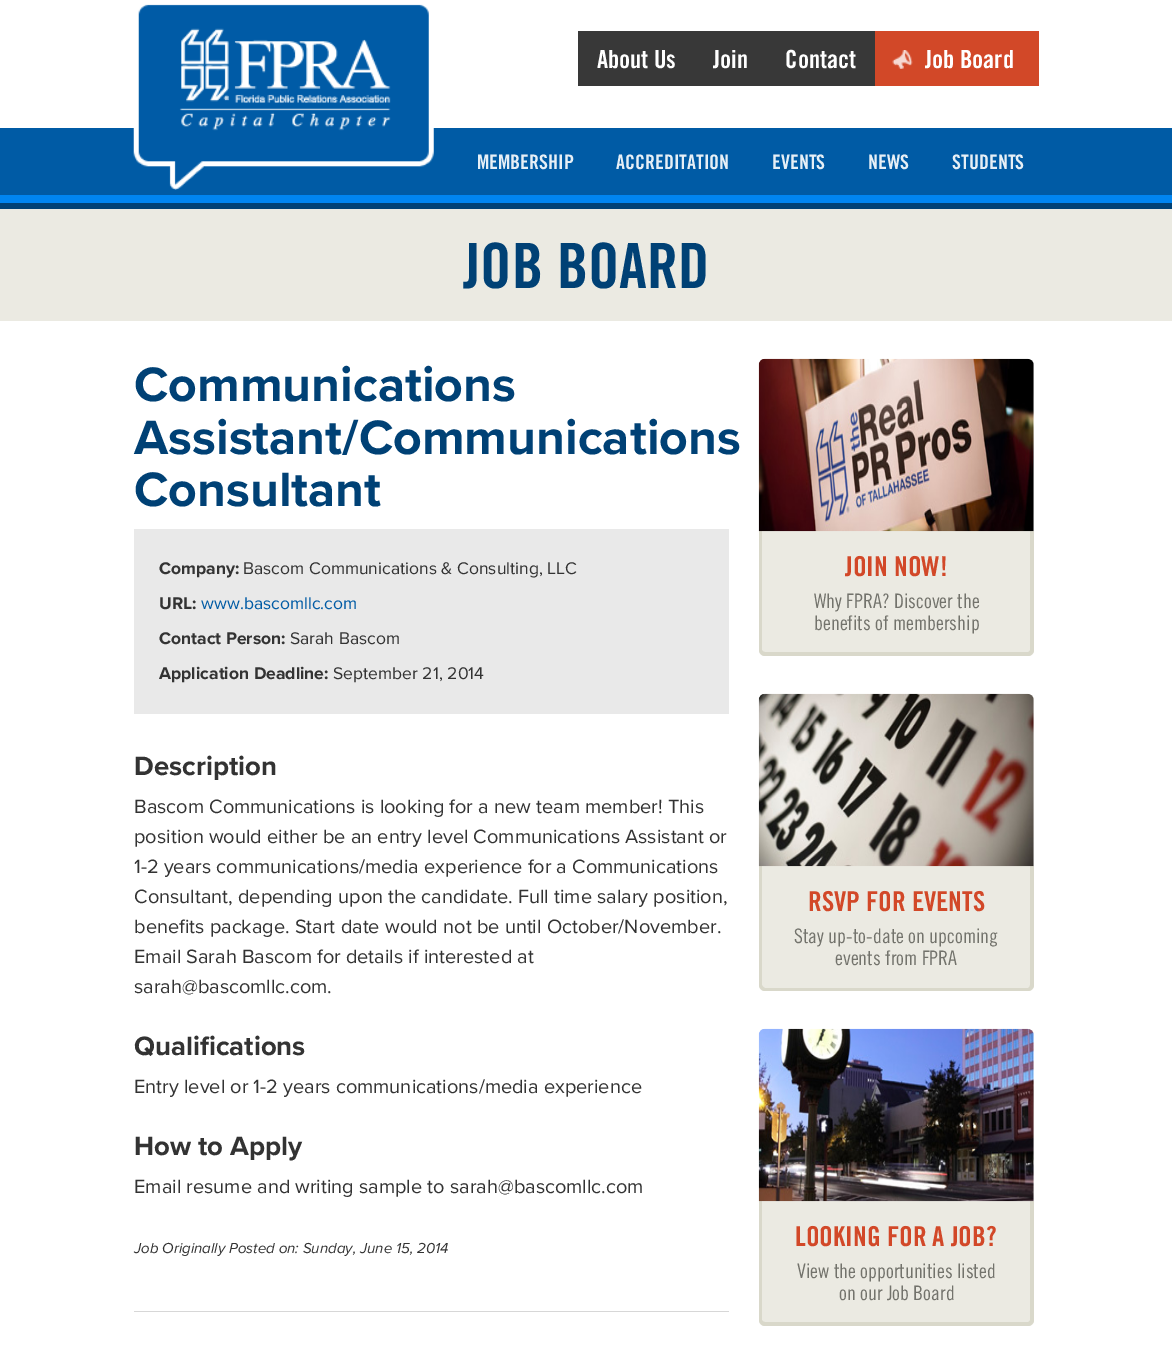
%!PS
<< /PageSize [1172 1362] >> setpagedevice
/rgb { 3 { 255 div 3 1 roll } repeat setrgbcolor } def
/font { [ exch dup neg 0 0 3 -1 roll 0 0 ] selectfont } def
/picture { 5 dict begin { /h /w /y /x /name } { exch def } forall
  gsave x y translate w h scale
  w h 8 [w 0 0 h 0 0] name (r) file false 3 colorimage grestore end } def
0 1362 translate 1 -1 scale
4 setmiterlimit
255 255 255 rgb
0 0 1172 1362 rectfill
0 91 165 rgb
0 128 1172 67 rectfill
(img/1.rgb) 133 4 301 186 picture
56 56 56 rgb
578 31 297 55 rectfill
210 72 40 rgb
875 31 164 55 rectfill
(img/2.rgb) 892 50 21 19 picture
[
  [0 195 1172 8 0 133 241]
  [0 209 1172 112 235 234 226]
  [0 203 1172 6 0 65 117]
  [134 529 595 185 233 233 233]
  [134 1311 595 1 215 215 215]
] { aload pop rgb rectfill } forall
235 234 226 rgb
759 531 moveto 1034 531 lineto 1034 650 lineto 1034 653.5 1031.5 656 1028 656 curveto 765 656 lineto 761.5 656 759 653.5 759 650 curveto closepath fill
217 216 202 rgb
759 531 moveto 1034 531 lineto 1034 650 lineto 1034 653 1031 656 1028 656 curveto 765 656 lineto 762 656 759 653 759 650 curveto closepath 762 531 moveto 1030 531 lineto 1030 650 lineto 1030 651 1029 652 1028 652 curveto 765 652 lineto 764 652 762 651 762 650 curveto closepath eofill
(img/3.rgb) 758 358 276 174 picture
235 234 226 rgb
759 866 moveto 1034 866 lineto 1034 985 lineto 1034 988.5 1031.5 991 1028 991 curveto 765 991 lineto 761.5 991 759 988.5 759 985 curveto closepath fill
217 216 202 rgb
759 866 moveto 1034 866 lineto 1034 985 lineto 1034 988 1031 991 1028 991 curveto 765 991 lineto 762 991 759 988 759 985 curveto closepath 762 866 moveto 1030 866 lineto 1030 985 lineto 1030 986 1029 988 1028 988 curveto 765 988 lineto 764 988 762 986 762 985 curveto closepath eofill
(img/4.rgb) 758 693 276 174 picture
235 234 226 rgb
759 1201 moveto 1034 1201 lineto 1034 1320 lineto 1034 1323.5 1031.5 1326 1028 1326 curveto 765 1326 lineto 761.5 1326 759 1323.5 759 1320 curveto closepath fill
217 216 202 rgb
759 1201 moveto 1034 1201 lineto 1034 1320 lineto 1034 1323 1031 1326 1028 1326 curveto 765 1326 lineto 762 1326 759 1323 759 1320 curveto closepath 762 1201 moveto 1030 1201 lineto 1030 1320 lineto 1030 1321 1029 1322 1028 1322 curveto 765 1322 lineto 764 1322 762 1321 762 1320 curveto closepath eofill
(img/5.rgb) 758 1028 276 174 picture
/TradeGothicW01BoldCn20-Bold 25 font
255 255 255 rgb
[
  [(About Us) 597 68]
  [(Join) 713 68]
  [(Contact) 785 68]
  [(Job Board) 925 68]
] { aload pop moveto show } forall
/TradeGothicW01BoldCn20-Bold 20 font
230 239 246 rgb
[
  [(MEMBERSHIP) 477 169]
  [(ACCREDITATION) 616 169]
  [(EVENTS) 772 169]
  [(NEWS) 868 169]
  [(STUDENTS) 952 169]
] { aload pop moveto show } forall
/TradeGothicW01BoldCn20-Bold 62.5 font
0 65 117 rgb
463 288 moveto (JOB BOARD) show
/ProximaNova-Bold 50 font
[
  [(Communications) 134 401]
  [(Assistant/Communications) 134 454]
  [(Consultant) 134 506]
] { aload pop moveto show } forall
/ProximaNova-Bold 17.5 font
51 51 51 rgb
159 574 moveto (Company:) show
/ProximaNova-Regular 17.5 font
243 574 moveto (Bascom Communications & Consulting, LLC) show
/ProximaNova-Bold 17.5 font
159 609 moveto (URL:) show
/ProximaNova-Regular 17.5 font
0 91 165 rgb
201 609 moveto (www.bascomllc.com) show
/ProximaNova-Bold 17.5 font
51 51 51 rgb
159 644 moveto (Contact Person:) show
/ProximaNova-Regular 17.5 font
290 644 moveto (Sarah Bascom) show
/ProximaNova-Bold 17.5 font
159 679 moveto (Application Deadline:) show
/ProximaNova-Regular 17.5 font
333 679 moveto (September 21, 2014) show
/ProximaNova-Bold 27.5 font
134 775 moveto (Description) show
/ProximaNova-Regular 20 font
[
  [(Bascom Communications is looking for a new team member! This) 134 813]
  [(position would either be an entry level Communications Assistant or) 134 843]
  [(1-2 years communications/media experience for a Communications) 134 873]
  [(Consultant, depending upon the candidate. Full time salary position,) 134 903]
  [(benefits package. Start date would not be until October/November.) 134 933]
  [(Email Sarah Bascom for details if interested at) 134 963]
  [(sarah@bascomllc.com.) 134 993]
] { aload pop moveto show } forall
/ProximaNova-Bold 27.5 font
134 1055 moveto (Qualifications) show
/ProximaNova-Regular 20 font
134 1093 moveto (Entry level or 1-2 years communications/media experience) show
/ProximaNova-Bold 27.5 font
134 1155 moveto (How to Apply) show
/ProximaNova-Regular 20 font
134 1193 moveto (Email resume and writing sample to sarah@bascomllc.com) show
/ProximaNova-Italic 15 font
134 1253 moveto (Job Originally Posted on: Sunday, June 15, 2014) show
/TradeGothicW01BoldCn20-Bold 27.5 font
210 72 40 rgb
845 576 moveto (JOIN NOW!) show
/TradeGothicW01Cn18-Regular 20 font
115 115 108 rgb
814 608 moveto (Why FPRA? Discover the) show
814 630 moveto (benefits of membership) show
/TradeGothicW01BoldCn20-Bold 27.5 font
210 72 40 rgb
808 911 moveto (RSVP FOR EVENTS) show
/TradeGothicW01Cn18-Regular 20 font
115 115 108 rgb
794 943 moveto (Stay up-to-date on upcoming) show
835 965 moveto (events from FPRA) show
/TradeGothicW01BoldCn20-Bold 27.5 font
210 72 40 rgb
795 1246 moveto (LOOKING FOR A JOB?) show
/TradeGothicW01Cn18-Regular 20 font
115 115 108 rgb
797 1278 moveto (View the opportunities listed) show
839 1300 moveto (on our Job Board) show
showpage
